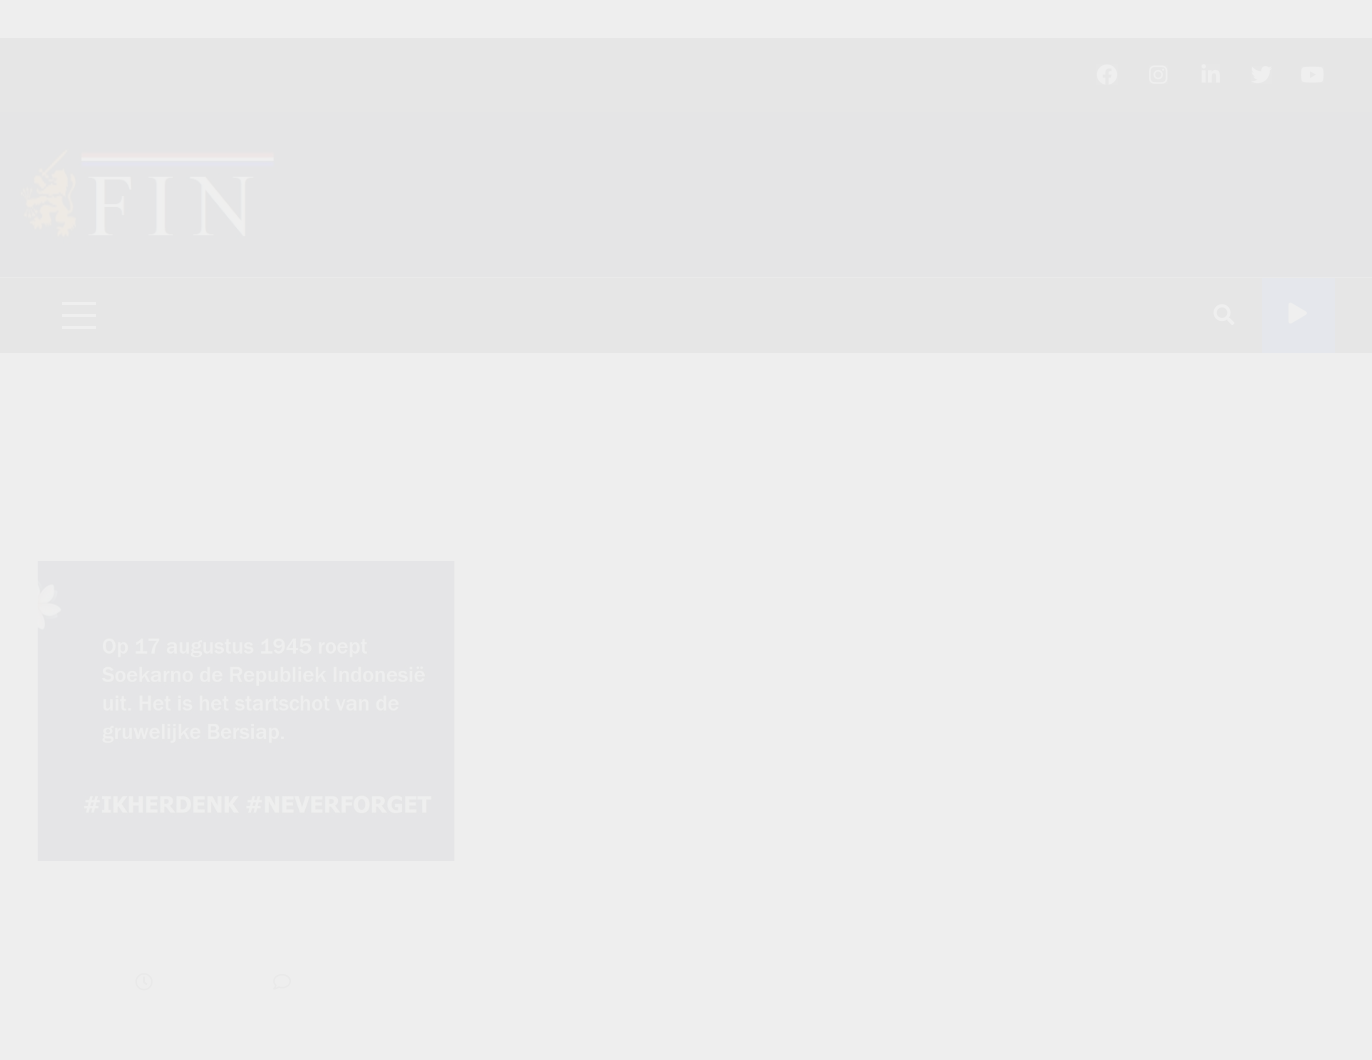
%!PS
<< /PageSize [1372 1060] >> setpagedevice
/rgb { 3 { 255 div 3 1 roll } repeat setrgbcolor } def
/picture { 5 dict begin { /h /w /y /x /name } { exch def } forall
  gsave x y translate w h scale
  w h 8 [w 0 0 h 0 0] name (r) file false 3 colorimage grestore end } def
0 1060 translate 1 -1 scale
4 setmiterlimit
238 238 238 rgb
0 0 1372 1060 rectfill
230 230 230 rgb
0 38 1372 75 rectfill
(img/1.rgb) 1096 64 22 21 picture
(img/2.rgb) 1149 65 19 19 picture
(img/3.rgb) 1201 64 19 19 picture
(img/4.rgb) 1251 66 21 18 picture
(img/5.rgb) 1301 66 23 17 picture
(img/6.rgb) 0 112 1372 166 picture
[
  [0 278 1372 75 230 230 230]
  [62 314 34 3 239 239 239]
  [62 302 34 3 239 239 239]
  [62 326 34 3 239 239 239]
] { aload pop rgb rectfill } forall
(img/7.rgb) 1213 304 22 22 picture
229 231 236 rgb
1262 278 73 75 rectfill
(img/8.rgb) 1288 302 19 22 picture
(img/9.rgb) 37 561 418 300 picture
(img/10.rgb) 135 973 18 18 picture
(img/11.rgb) 273 973 18 17 picture
showpage
